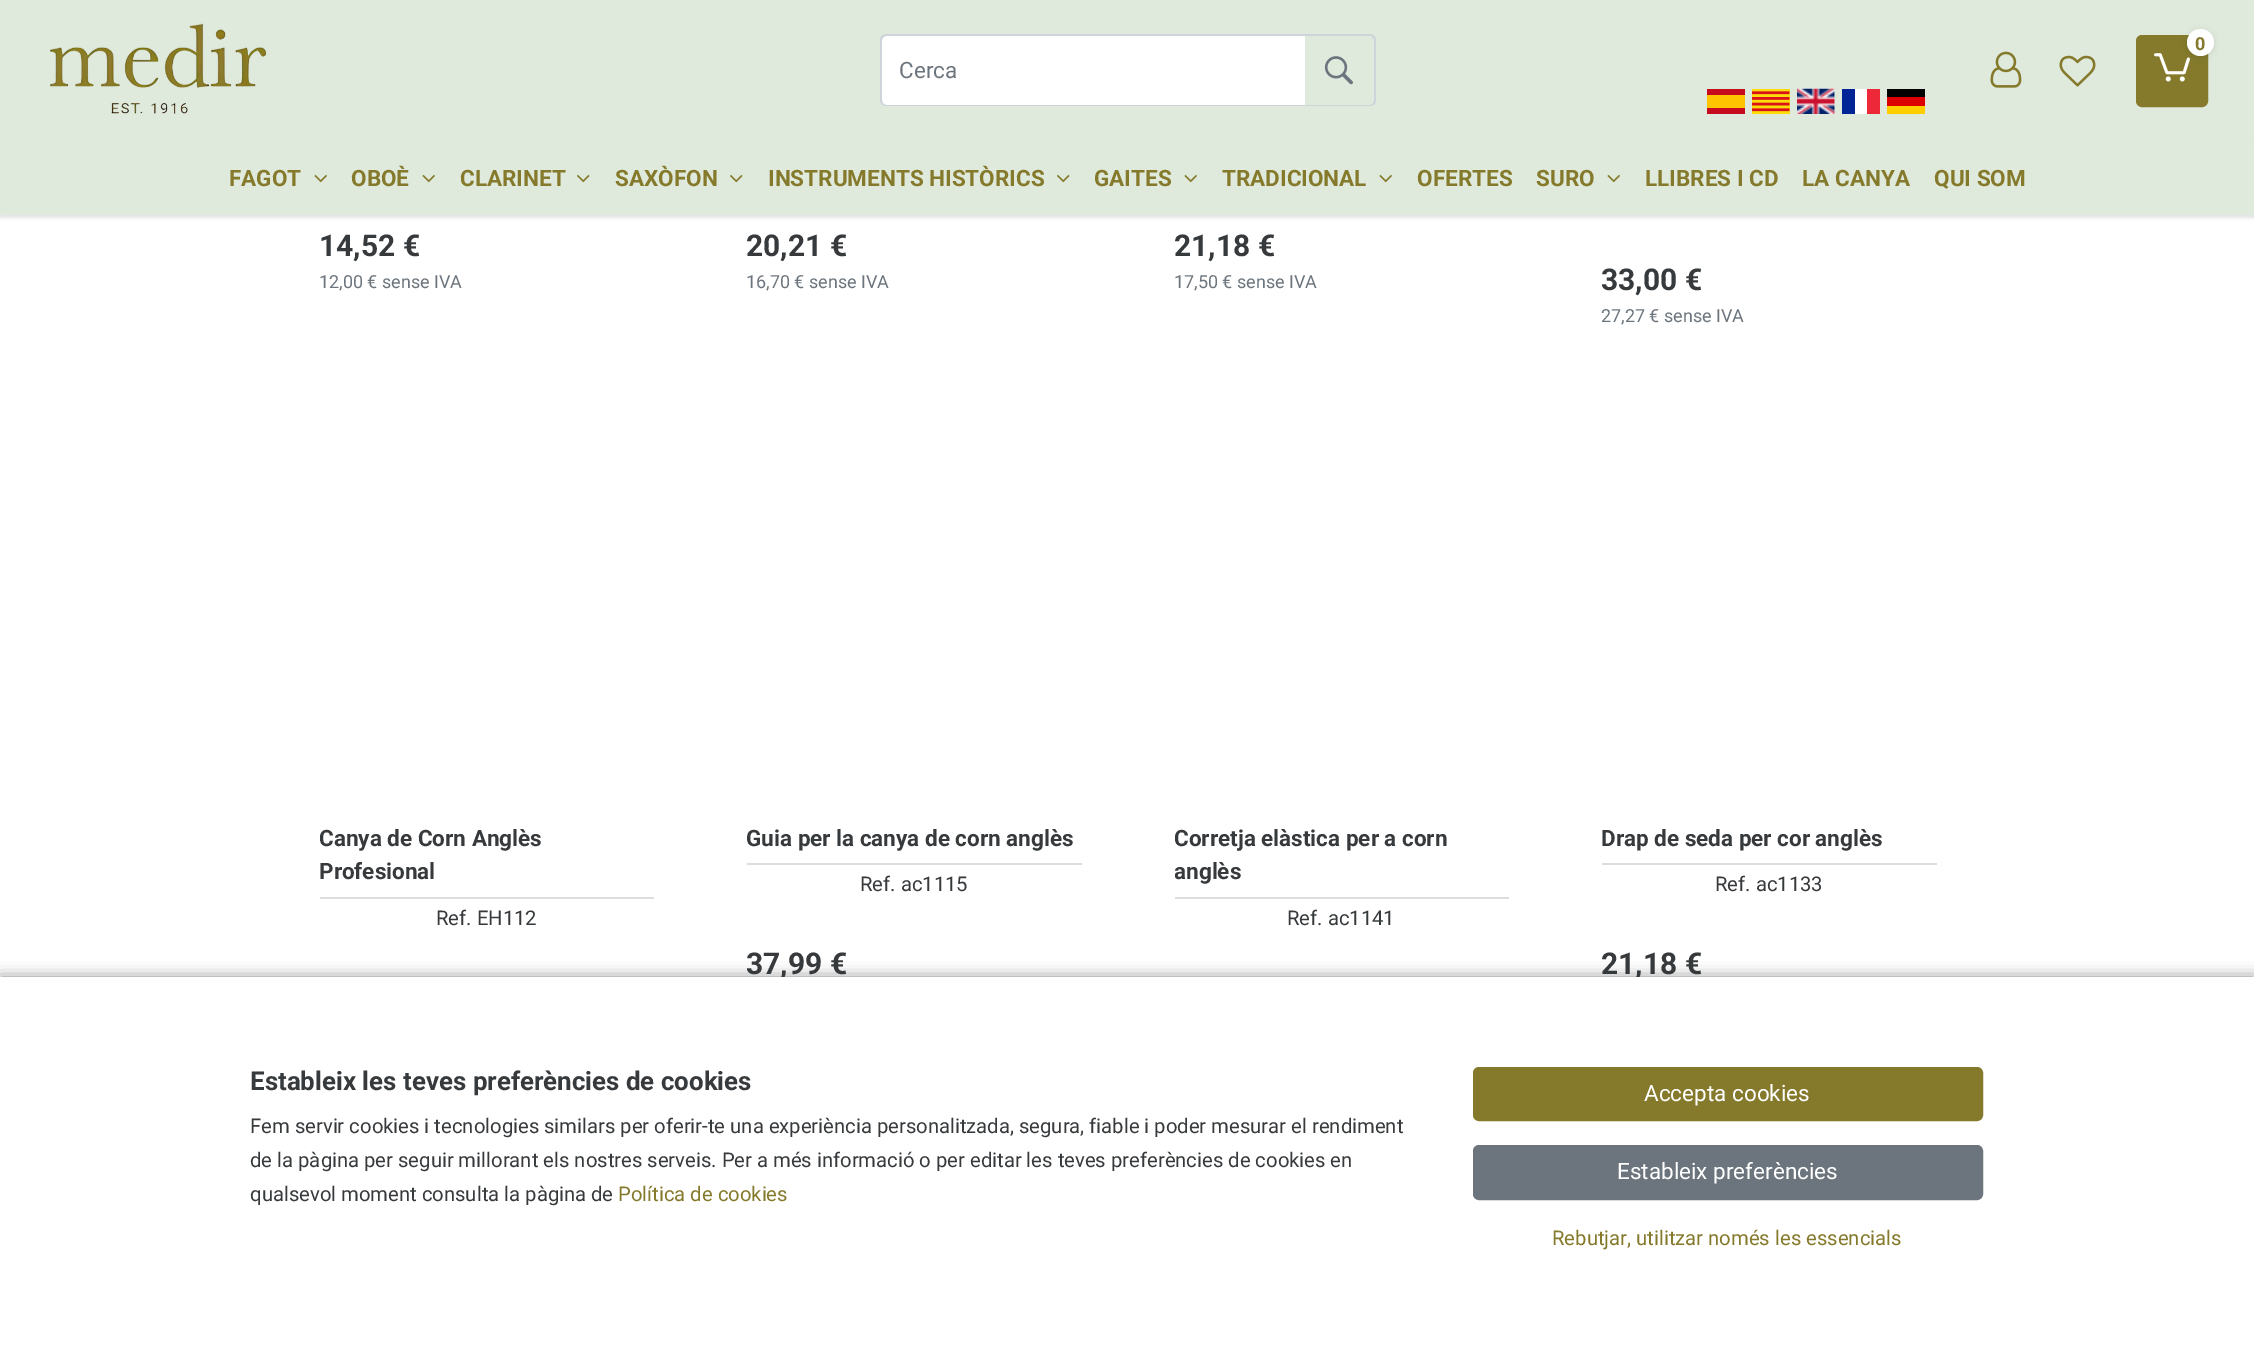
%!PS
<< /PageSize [2254 1352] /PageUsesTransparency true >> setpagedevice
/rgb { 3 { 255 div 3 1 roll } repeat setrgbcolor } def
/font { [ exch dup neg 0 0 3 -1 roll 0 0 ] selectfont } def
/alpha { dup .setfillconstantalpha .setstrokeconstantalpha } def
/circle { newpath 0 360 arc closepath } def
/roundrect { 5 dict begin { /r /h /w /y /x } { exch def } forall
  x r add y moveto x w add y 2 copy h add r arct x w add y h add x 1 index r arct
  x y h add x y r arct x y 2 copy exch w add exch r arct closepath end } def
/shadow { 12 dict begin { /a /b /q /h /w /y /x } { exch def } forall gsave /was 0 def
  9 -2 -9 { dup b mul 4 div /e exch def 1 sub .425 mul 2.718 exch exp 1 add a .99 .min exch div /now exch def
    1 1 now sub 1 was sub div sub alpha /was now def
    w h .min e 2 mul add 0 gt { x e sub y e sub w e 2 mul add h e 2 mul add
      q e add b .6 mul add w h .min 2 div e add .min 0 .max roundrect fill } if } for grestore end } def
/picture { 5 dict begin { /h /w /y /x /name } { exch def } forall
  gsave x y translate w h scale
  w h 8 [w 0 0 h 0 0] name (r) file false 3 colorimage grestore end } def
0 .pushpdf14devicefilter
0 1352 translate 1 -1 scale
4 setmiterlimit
255 255 255 rgb
0 0 2254 1352 rectfill
223 234 221 rgb
0 0 2254 215 rectfill
(img/1.rgb) 49 23 218 91 picture
133 121 43 rgb
2137 36 70 70 5 roundrect gsave fill grestore
2 setlinewidth
stroke
(img/2.rgb) 2154 53 36 29 picture
0 0 0 rgb
2187 30 27 27 13.5 3 0.1 shadow
255 255 255 rgb
2200.5 42.5 13.5 circle fill
(img/3.rgb) 1990 51 32 37 picture
(img/4.rgb) 2059 55 37 32 picture
887 36 moveto 1305 36 lineto 1305 105 lineto 887 105 lineto 884 105 882 103 882 100 curveto 882 41 lineto 882 38 884 36 887 36 curveto closepath fill
206 212 218 rgb
886 34 moveto 1305 34 lineto 1305 106 lineto 886 106 lineto 883 106 880 104 880 100 curveto 880 40 lineto 880 37 883 34 886 34 curveto closepath 886 36 moveto 1305 36 lineto 1305 105 lineto 886 105 lineto 884 105 882 103 882 100 curveto 882 40 lineto 882 38 884 36 886 36 curveto closepath eofill
1304 34 moveto 1370 34 lineto 1373 34 1376 37 1376 40 curveto 1376 100 lineto 1376 104 1373 106 1370 106 curveto 1304 106 lineto closepath 1304 36 moveto 1370 36 lineto 1372 36 1374 38 1374 40 curveto 1374 100 lineto 1374 103 1372 105 1370 105 curveto 1304 105 lineto closepath eofill
(img/5.rgb) 1324 56 29 29 picture
gsave
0 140 moveto 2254 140 lineto 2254 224 lineto 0 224 lineto closepath 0 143 moveto 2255 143 lineto 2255 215 lineto 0 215 lineto closepath eoclip newpath
0 0 0 rgb
0 146 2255 72 0 1.5 0.1 shadow
grestore
(img/6.rgb) 314 175 13 8 picture
(img/6.rgb) 422 175 13 8 picture
(img/7.rgb) 577 175 13 8 picture
(img/7.rgb) 730 175 13 8 picture
(img/7.rgb) 1057 175 13 8 picture
(img/6.rgb) 1184 175 13 8 picture
(img/6.rgb) 1379 175 13 8 picture
(img/6.rgb) 1607 175 13 8 picture
198 11 30 rgb
1707 89 38 25 rectfill
255 196 0 rgb
1707 95 38 13 rectfill
(img/8.rgb) 1752 89 38 25 picture
(img/9.rgb) 1797 88 38 26 picture
[
  [1867 89 13 25 237 41 57]
  [1855 89 12 25 255 255 255]
  [1842 89 13 25 0 35 149]
  [1887 89 38 8 0 0 0]
  [1887 97 38 9 221 0 0]
  [1887 106 38 8 255 206 0]
  [320 897 334 2 221 221 221]
  [747 863 335 2 221 221 221]
  [1175 897 334 2 221 221 221]
  [1602 863 335 2 221 221 221]
] { aload pop rgb rectfill } forall
0 0 0 rgb
0 978 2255 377 0 7.5 0.5 shadow
/Roboto-Bold 18 font
133 121 43 rgb
2195 50 moveto (0) show
/Roboto-Regular 22.5 font
108 117 125 rgb
899 78 moveto (Cerca) show
/Roboto-Bold 22.5 font
133 121 43 rgb
[
  [(FAGOT) 229 186]
  [(OBOÈ) 351 186]
  [(CLARINET) 460 186]
  [(SAXÒFON) 615 186]
  [(INSTRUMENTS HISTÒRICS) 768 186]
  [(GAITES) 1094 186]
  [(TRADICIONAL) 1222 186]
  [(OFERTES) 1417 186]
  [(SURO) 1536 186]
  [(LLIBRES I CD) 1645 186]
  [(LA CANYA) 1802 186]
  [(QUI SOM) 1934 186]
] { aload pop moveto show } forall
/Roboto-Bold 30 font
55 58 60 rgb
319 256 moveto (14,52 €) show
/Roboto-Regular 18 font
108 117 125 rgb
319 288 moveto (12,00 € sense IVA) show
/Roboto-Bold 30 font
55 58 60 rgb
746 256 moveto (20,21 €) show
/Roboto-Regular 18 font
108 117 125 rgb
746 288 moveto (16,70 € sense IVA) show
/Roboto-Bold 30 font
55 58 60 rgb
1174 256 moveto (21,18 €) show
/Roboto-Regular 18 font
108 117 125 rgb
1174 288 moveto (17,50 € sense IVA) show
/Roboto-Bold 30 font
55 58 60 rgb
1601 290 moveto (33,00 €) show
/Roboto-Regular 18 font
108 117 125 rgb
1601 322 moveto (27,27 € sense IVA) show
gsave
320 822 334 75 rectclip
/Roboto-Bold 22.5 font
55 58 60 rgb
319 846 moveto (Canya de Corn Anglès) show
grestore
/Roboto-Bold 22.5 font
55 58 60 rgb
319 879 moveto (Profesional) show
/Roboto-Regular 20.25 font
436 925 moveto (Ref. EH112) show
/Roboto-Bold 22.5 font
746 846 moveto (Guia per la canya de corn anglès) show
/Roboto-Regular 20.25 font
860 891 moveto (Ref. ac1115) show
/Roboto-Bold 30 font
746 974 moveto (37,99 €) show
gsave
1175 822 334 75 rectclip
/Roboto-Bold 22.5 font
1174 846 moveto (Corretja elàstica per a corn) show
1174 879 moveto (anglès) show
grestore
/Roboto-Regular 20.25 font
1287 925 moveto (Ref. ac1141) show
/Roboto-Bold 22.5 font
1601 846 moveto (Drap de seda per cor anglès) show
/Roboto-Regular 20.25 font
1715 891 moveto (Ref. ac1133) show
/Roboto-Bold 30 font
1601 974 moveto (21,18 €) show
255 255 255 rgb
0 977 2254 375 rectfill
/Roboto-Bold 25.9 font
55 58 60 rgb
250 1090 moveto (Estableix les teves preferències de cookies) show
/Roboto-Regular 20.25 font
[
  [(Fem servir cookies i tecnologies similars per oferir-te una experiència personalitzada, segura, fiable i poder mesurar el rendiment) 250 1133]
  [(de la pàgina per seguir millorant els nostres serveis. Per a més informació o per editar les teves preferències de cookies en) 250 1167]
  [(qualsevol moment consulta la pàgina de) 250 1201]
] { aload pop moveto show } forall
133 121 43 rgb
618 1201 moveto (Política de cookies) show
1474 1068 508 52 5 roundrect gsave fill grestore
stroke
/Roboto-Regular 22.5 font
255 255 255 rgb
1644 1101 moveto (Accepta cookies) show
108 117 125 rgb
1474 1146 508 53 5 roundrect gsave fill grestore
stroke
255 255 255 rgb
1617 1179 moveto (Estableix preferències) show
/Roboto-Regular 20.25 font
133 121 43 rgb
1552 1245 moveto (Rebutjar, utilitzar només les essencials) show
.poppdf14devicefilter showpage
